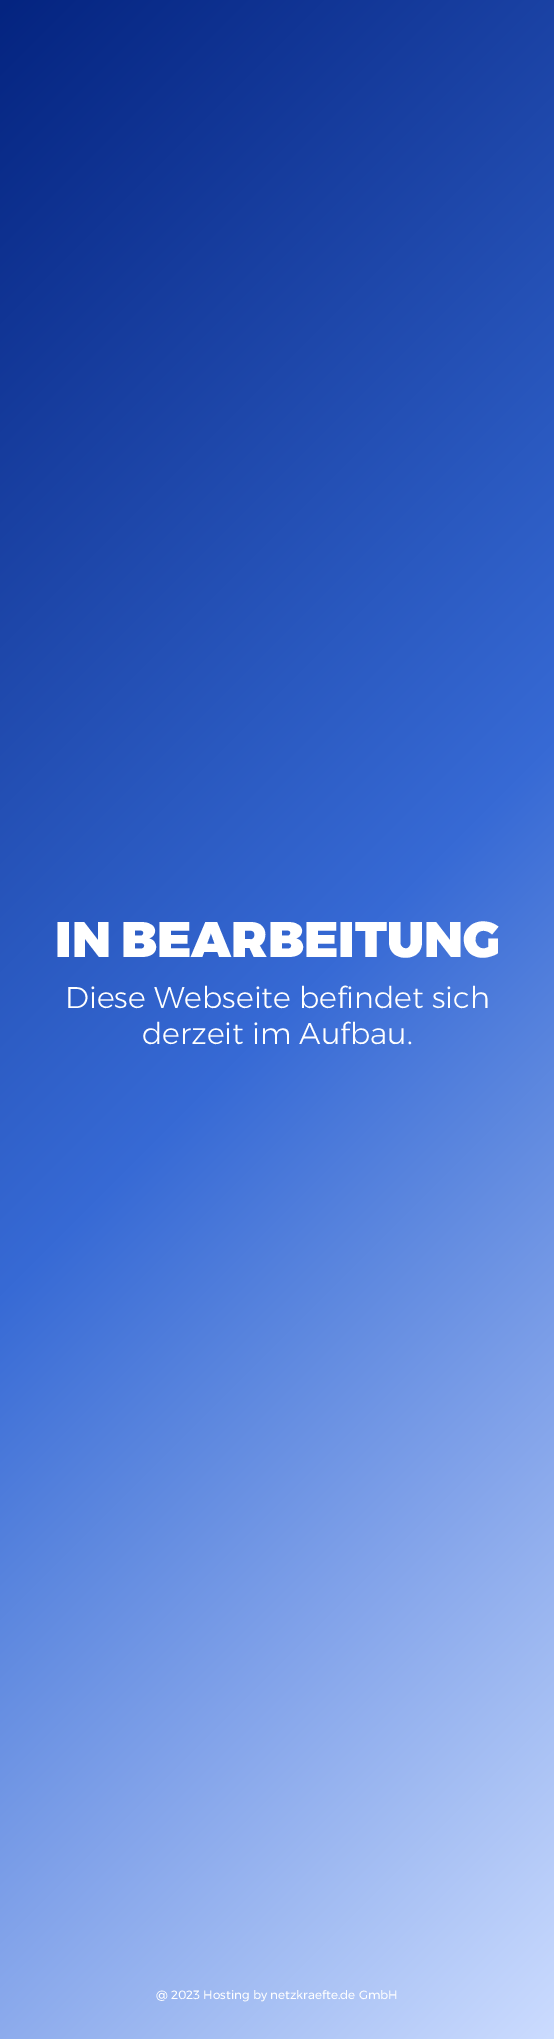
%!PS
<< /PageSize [554 2039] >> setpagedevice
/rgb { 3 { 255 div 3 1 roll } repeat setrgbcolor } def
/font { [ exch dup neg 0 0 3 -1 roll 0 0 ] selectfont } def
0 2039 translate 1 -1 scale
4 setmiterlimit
255 255 255 rgb
0 0 554 2039 rectfill
gsave 0 0 moveto 554 0 lineto 554 2039 lineto 0 2039 lineto closepath clip newpath
<< /ShadingType 2 /ColorSpace /DeviceRGB /Coords [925 1668 -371 371] /Extend [true true] /Function << /FunctionType 3 /Domain [0 1] /Functions [<< /FunctionType 2 /Domain [0 1] /C0 [0.8 0.863 1] /C1 [0.216 0.416 0.835] /N 1 >> << /FunctionType 2 /Domain [0 1] /C0 [0.216 0.416 0.835] /C1 [0.016 0.141 0.502] /N 1 >>] /Bounds [0.5] /Encode [0 1 0 1] >> >> shfill grestore
/Montserrat-Black 50 font
55 957 moveto (IN BEARBEITUNG) show
/Montserrat-Light 30 font
65 1008 moveto (Diese Webseite befindet sich) show
142 1044 moveto (derzeit im Aufbau.) show
/Montserrat-Regular 12 font
156 1999 moveto (@ 2023 Hosting by netzkraefte.de GmbH) show
showpage
